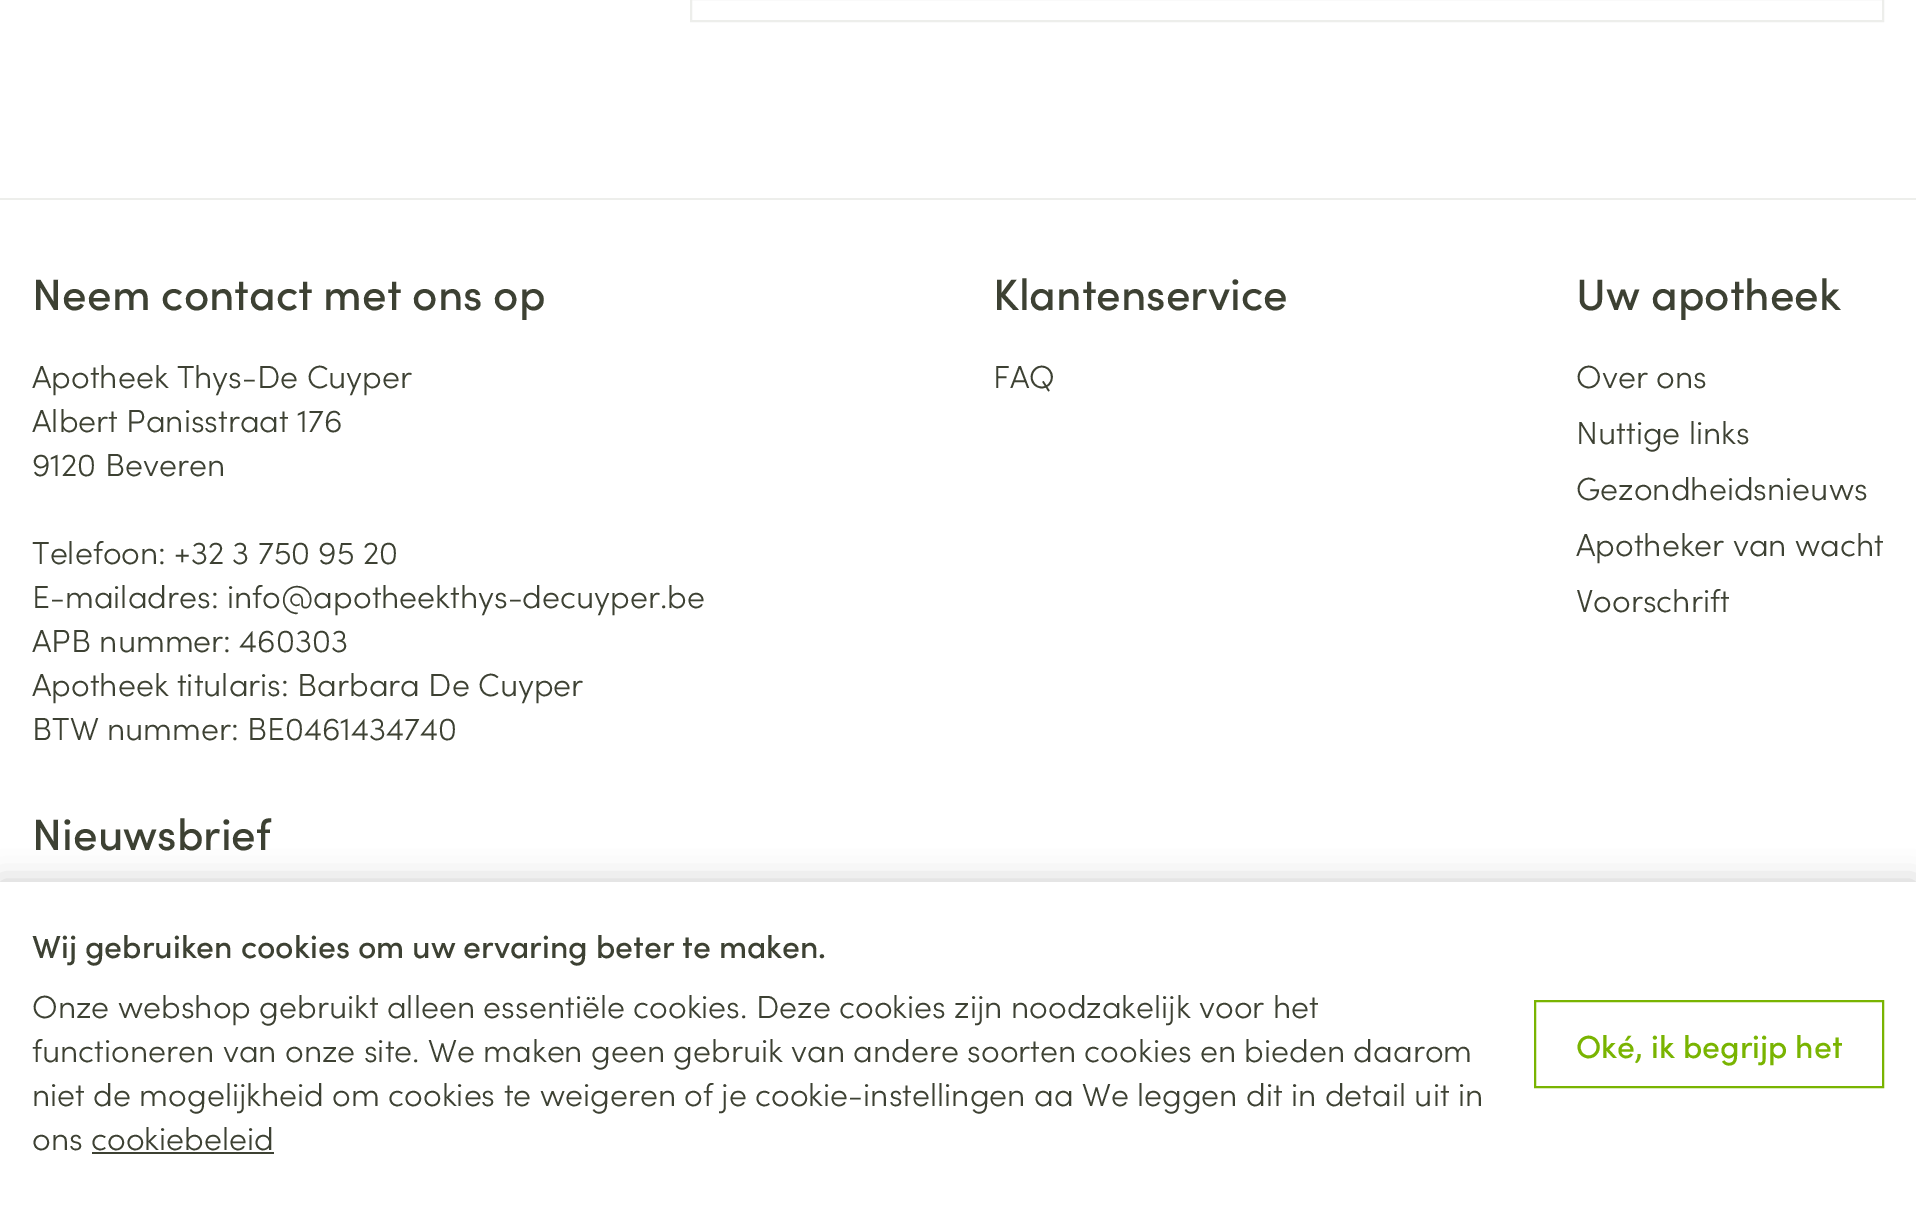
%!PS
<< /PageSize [1916 1205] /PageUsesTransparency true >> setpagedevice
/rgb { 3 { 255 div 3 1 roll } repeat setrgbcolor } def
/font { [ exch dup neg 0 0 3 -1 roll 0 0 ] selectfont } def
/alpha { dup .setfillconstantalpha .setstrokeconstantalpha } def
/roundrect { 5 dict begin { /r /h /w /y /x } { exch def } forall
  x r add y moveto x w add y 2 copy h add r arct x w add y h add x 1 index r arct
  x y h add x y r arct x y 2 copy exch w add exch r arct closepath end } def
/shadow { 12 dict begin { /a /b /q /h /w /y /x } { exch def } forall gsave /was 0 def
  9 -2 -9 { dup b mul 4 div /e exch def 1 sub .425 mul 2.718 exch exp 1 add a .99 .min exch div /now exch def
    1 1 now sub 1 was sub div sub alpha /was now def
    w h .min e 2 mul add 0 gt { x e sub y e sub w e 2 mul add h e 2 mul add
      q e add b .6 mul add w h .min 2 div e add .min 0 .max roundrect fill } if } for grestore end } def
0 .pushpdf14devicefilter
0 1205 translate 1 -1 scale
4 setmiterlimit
255 255 255 rgb
0 0 1916 1205 rectfill
237 238 235 rgb
2 setlinewidth
691 -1 1192 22 rectstroke
0 198 1916 2 rectfill
0 0 0 rgb
0 882 1916 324 0 15 0.2 shadow
255 255 255 rgb
0 882 1916 323 rectfill
61 65 51 rgb
92 1152 182 2 rectfill
121 180 1 rgb
1535 1001 348 86 rectstroke
/Sofia-Medium 44 font
61 65 51 rgb
32 310 moveto (Neem contact met ons op) show
/Sofia-Light 32 font
[
  [(Apotheek Thys-De Cuyper) 32 388]
  [(Albert Panisstraat 176) 32 432]
  [(9120 Beveren) 32 476]
  [(Telefoon: +32 3 750 95 20) 32 564]
  [(E-mailadres: info@apotheekthys-decuyper.be) 32 608]
  [(APB nummer: 460303) 32 652]
  [(Apotheek titularis: Barbara De Cuyper) 32 696]
  [(BTW nummer: BE0461434740) 32 740]
] { aload pop moveto show } forall
/Sofia-Medium 44 font
993 310 moveto (Klantenservice) show
/Sofia-Light 32 font
993 388 moveto (FAQ) show
/Sofia-Medium 44 font
1576 310 moveto (Uw apotheek) show
/Sofia-Light 32 font
[
  [(Over ons) 1576 388]
  [(Nuttige links) 1576 444]
  [(Gezondheidsnieuws) 1576 500]
  [(Apotheker van wacht) 1576 556]
  [(Voorschrift) 1576 612]
] { aload pop moveto show } forall
/Sofia-Medium 44 font
32 850 moveto (Nieuwsbrief) show
/Sofia-Medium 32 font
32 958 moveto (Wij gebruiken cookies om uw ervaring beter te maken.) show
/Sofia-Light 32 font
[
  [(Onze webshop gebruikt alleen essentiële cookies. Deze cookies zijn noodzakelijk voor het) 32 1018]
  [(functioneren van onze site. We maken geen gebruik van andere soorten cookies en bieden daarom) 32 1062]
  [(niet de mogelijkheid om cookies te weigeren of je cookie-instellingen aa We leggen dit in detail uit in) 32 1106]
  [(ons cookiebeleid) 32 1150]
] { aload pop moveto show } forall
/Sofia-Medium 32 font
121 180 1 rgb
1576 1058 moveto (Oké, ik begrijp het) show
.poppdf14devicefilter showpage
